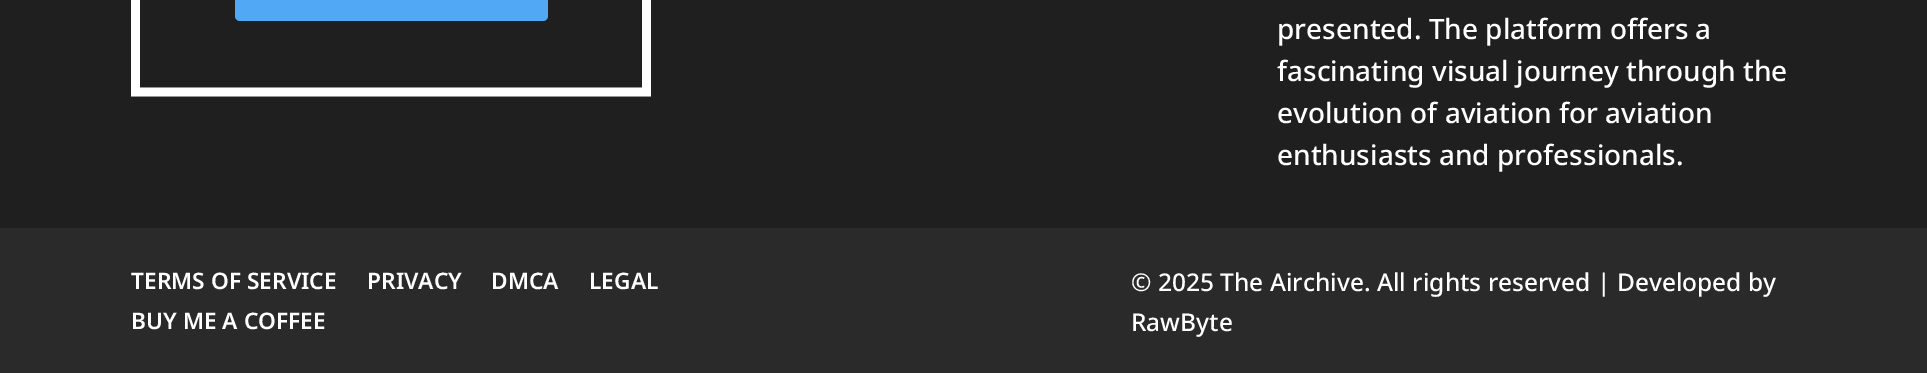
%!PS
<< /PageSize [1927 373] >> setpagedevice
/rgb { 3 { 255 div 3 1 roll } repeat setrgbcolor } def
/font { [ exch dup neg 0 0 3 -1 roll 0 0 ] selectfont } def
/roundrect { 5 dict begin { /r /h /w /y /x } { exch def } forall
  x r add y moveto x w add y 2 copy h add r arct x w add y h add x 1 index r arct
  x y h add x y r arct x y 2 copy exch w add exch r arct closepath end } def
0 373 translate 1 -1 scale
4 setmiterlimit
31 31 31 rgb
0 0 1927 373 rectfill
255 255 255 rgb
8.8 setlinewidth
135.5 -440 moveto 646.5 -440 lineto 646.5 92 lineto 135.5 92 lineto closepath stroke
81 168 244 rgb
235 -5 313 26 5 roundrect fill
42 42 42 rgb
0 228 1927 145 rectfill
/NotoSans-Medium 28 font
255 255 255 rgb
[
  [(presented. The platform offers a) 1277 39]
  [(fascinating visual journey through the) 1277 81]
  [(evolution of aviation for aviation) 1277 123]
  [(enthusiasts and professionals.) 1277 165]
] { aload pop moveto show } forall
/NotoSans-SemiBold 22.75 font
[
  [(TERMS OF SERVICE) 131 289]
  [(PRIVACY) 367 289]
  [(DMCA) 491 289]
  [(LEGAL) 589 289]
  [(BUY ME A COFFEE) 131 329]
] { aload pop moveto show } forall
/NotoSans-Medium 24.5 font
1131 291 moveto (© 2025 The Airchive. All rights reserved | Developed by) show
1131 331 moveto (RawByte) show
showpage
